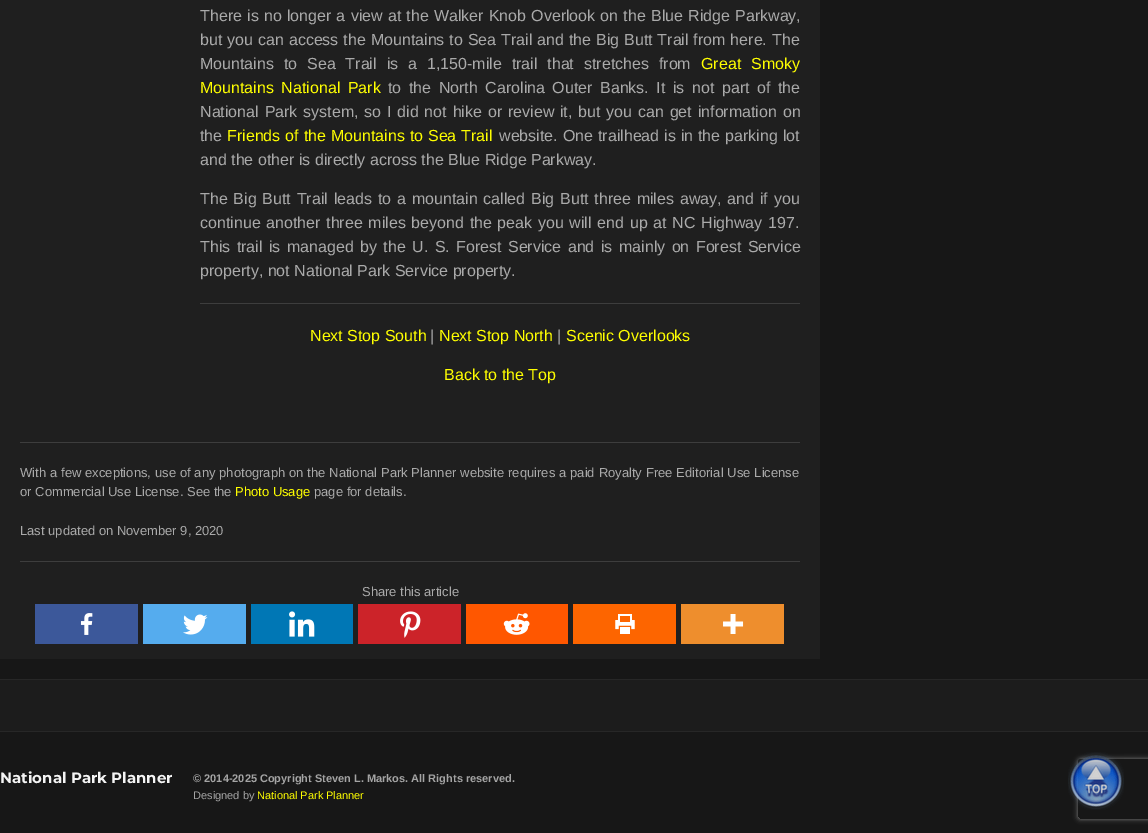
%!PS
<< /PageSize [1148 833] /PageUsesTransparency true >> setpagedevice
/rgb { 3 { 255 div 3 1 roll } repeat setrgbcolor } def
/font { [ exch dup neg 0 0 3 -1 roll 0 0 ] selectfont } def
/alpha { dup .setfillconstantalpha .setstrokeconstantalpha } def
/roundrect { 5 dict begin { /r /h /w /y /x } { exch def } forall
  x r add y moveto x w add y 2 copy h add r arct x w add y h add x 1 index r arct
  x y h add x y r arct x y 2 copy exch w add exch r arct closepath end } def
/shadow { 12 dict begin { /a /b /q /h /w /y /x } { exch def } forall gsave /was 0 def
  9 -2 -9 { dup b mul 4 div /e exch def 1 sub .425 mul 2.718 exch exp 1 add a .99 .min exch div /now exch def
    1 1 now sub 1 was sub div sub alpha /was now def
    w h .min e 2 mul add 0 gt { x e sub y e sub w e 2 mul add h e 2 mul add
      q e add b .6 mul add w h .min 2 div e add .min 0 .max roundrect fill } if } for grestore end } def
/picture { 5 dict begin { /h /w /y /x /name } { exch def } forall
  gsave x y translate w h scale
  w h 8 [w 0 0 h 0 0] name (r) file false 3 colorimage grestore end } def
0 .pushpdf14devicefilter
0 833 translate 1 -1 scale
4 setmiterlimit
23 23 23 rgb
0 0 1148 833 rectfill
[
  [0 0 820 659 31 31 31]
  [200 303 600 1 61 61 61]
  [20 442 780 1 61 61 61]
  [20 561 780 1 61 61 61]
  [35 604 103 40 60 88 154]
] { aload pop rgb rectfill } forall
(img/1.rgb) 80 613 13 22 picture
85 172 238 rgb
143 604 103 40 rectfill
(img/2.rgb) 183 614 25 21 picture
0 119 181 rgb
251 604 102 40 rectfill
(img/3.rgb) 289 611 26 26 picture
204 35 41 rgb
358 604 103 40 rectfill
(img/4.rgb) 400 611 21 27 picture
255 87 0 rgb
466 604 102 40 rectfill
(img/5.rgb) 503 613 27 22 picture
253 101 0 rgb
573 604 103 40 rectfill
(img/6.rgb) 615 614 20 20 picture
238 142 45 rgb
681 604 103 40 rectfill
(img/7.rgb) 723 614 21 20 picture
[
  [0 680 1148 51 28 28 28]
  [0 679 1148 1 39 39 39]
  [0 731 1148 1 39 39 39]
] { aload pop rgb rectfill } forall
gsave
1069 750 moveto 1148 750 lineto 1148 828 lineto 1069 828 lineto closepath 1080 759 moveto 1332 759 lineto 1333 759 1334 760 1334 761 curveto 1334 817 lineto 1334 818 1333 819 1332 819 curveto 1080 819 lineto 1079 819 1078 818 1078 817 curveto 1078 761 lineto 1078 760 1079 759 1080 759 curveto closepath eoclip newpath
128 128 128 rgb
1078 759 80 60 2 2.5 1 shadow
grestore
(img/8.rgb) 1068 752 56 58 picture
/LiberationSans-Regular 16 font
170 170 170 rgb
200 21 moveto 0.75 0 32 (There is no longer a view at the Walker Knob Overlook on the Blue Ridge Parkway,) widthshow
200 45 moveto 0.5 0 32 (but you can access the Mountains to Sea Trail and the Big Butt Trail from here. The) widthshow
200 69 moveto 5.5 0 32 (Mountains to Sea Trail is a 1,150-mile trail that stretches from) widthshow
255 255 0 rgb
701 69 moveto 5.5 0 32 (Great Smoky) widthshow
200 93 moveto 3.1 0 32 (Mountains National Park) widthshow
170 170 170 rgb
388 93 moveto 3.1 0 32 (to the North Carolina Outer Banks. It is not part of the) widthshow
200 117 moveto 1.4 0 32 (National Park system, so I did not hike or review it, but you can get information on) widthshow
200 141 moveto (the) show
255 255 0 rgb
227 141 moveto 0.5 0 32 (Friends of the Mountains to Sea Trail) widthshow
170 170 170 rgb
499 141 moveto 0.5 0 32 (website. One trailhead is in the parking lot) widthshow
200 165 moveto (and the other is directly across the Blue Ridge Parkway.) show
200 204 moveto 1.4 0 32 (The Big Butt Trail leads to a mountain called Big Butt three miles away, and if you) widthshow
200 228 moveto 1.25 0 32 (continue another three miles beyond the peak you will end up at NC Highway 197.) widthshow
200 252 moveto 2 0 32 (This trail is managed by the U. S. Forest Service and is mainly on Forest Service) widthshow
200 276 moveto (property, not National Park Service property.) show
255 255 0 rgb
310 341 moveto (Next Stop South) show
170 170 170 rgb
430 341 moveto (|) show
255 255 0 rgb
439 341 moveto (Next Stop North) show
170 170 170 rgb
557 341 moveto (|) show
255 255 0 rgb
566 341 moveto (Scenic Overlooks) show
444 380 moveto (Back to the Top) show
/LiberationSans-Regular 13 font
170 170 170 rgb
20 477 moveto 0.3 0 32 (With a few exceptions, use of any photograph on the National Park Planner website requires a paid Royalty Free Editorial Use License) widthshow
20 496 moveto (or Commercial Use License. See the) show
255 255 0 rgb
235 496 moveto (Photo Usage) show
170 170 170 rgb
[
  [(page for details.) 314 496]
  [(Last updated on November 9, 2020) 20 535]
  [(Share this article) 362 596]
] { aload pop moveto show } forall
/Montserrat-Bold 15 font
244 244 244 rgb
0 783 moveto (National Park Planner) show
/LiberationSans-Bold 11 font
164 164 164 rgb
193 782 moveto (© 2014-2025 Copyright Steven L. Markos. All Rights reserved.) show
/LiberationSans-Regular 11 font
193 799 moveto (Designed by) show
255 255 0 rgb
257 799 moveto (National Park Planner) show
.poppdf14devicefilter showpage
